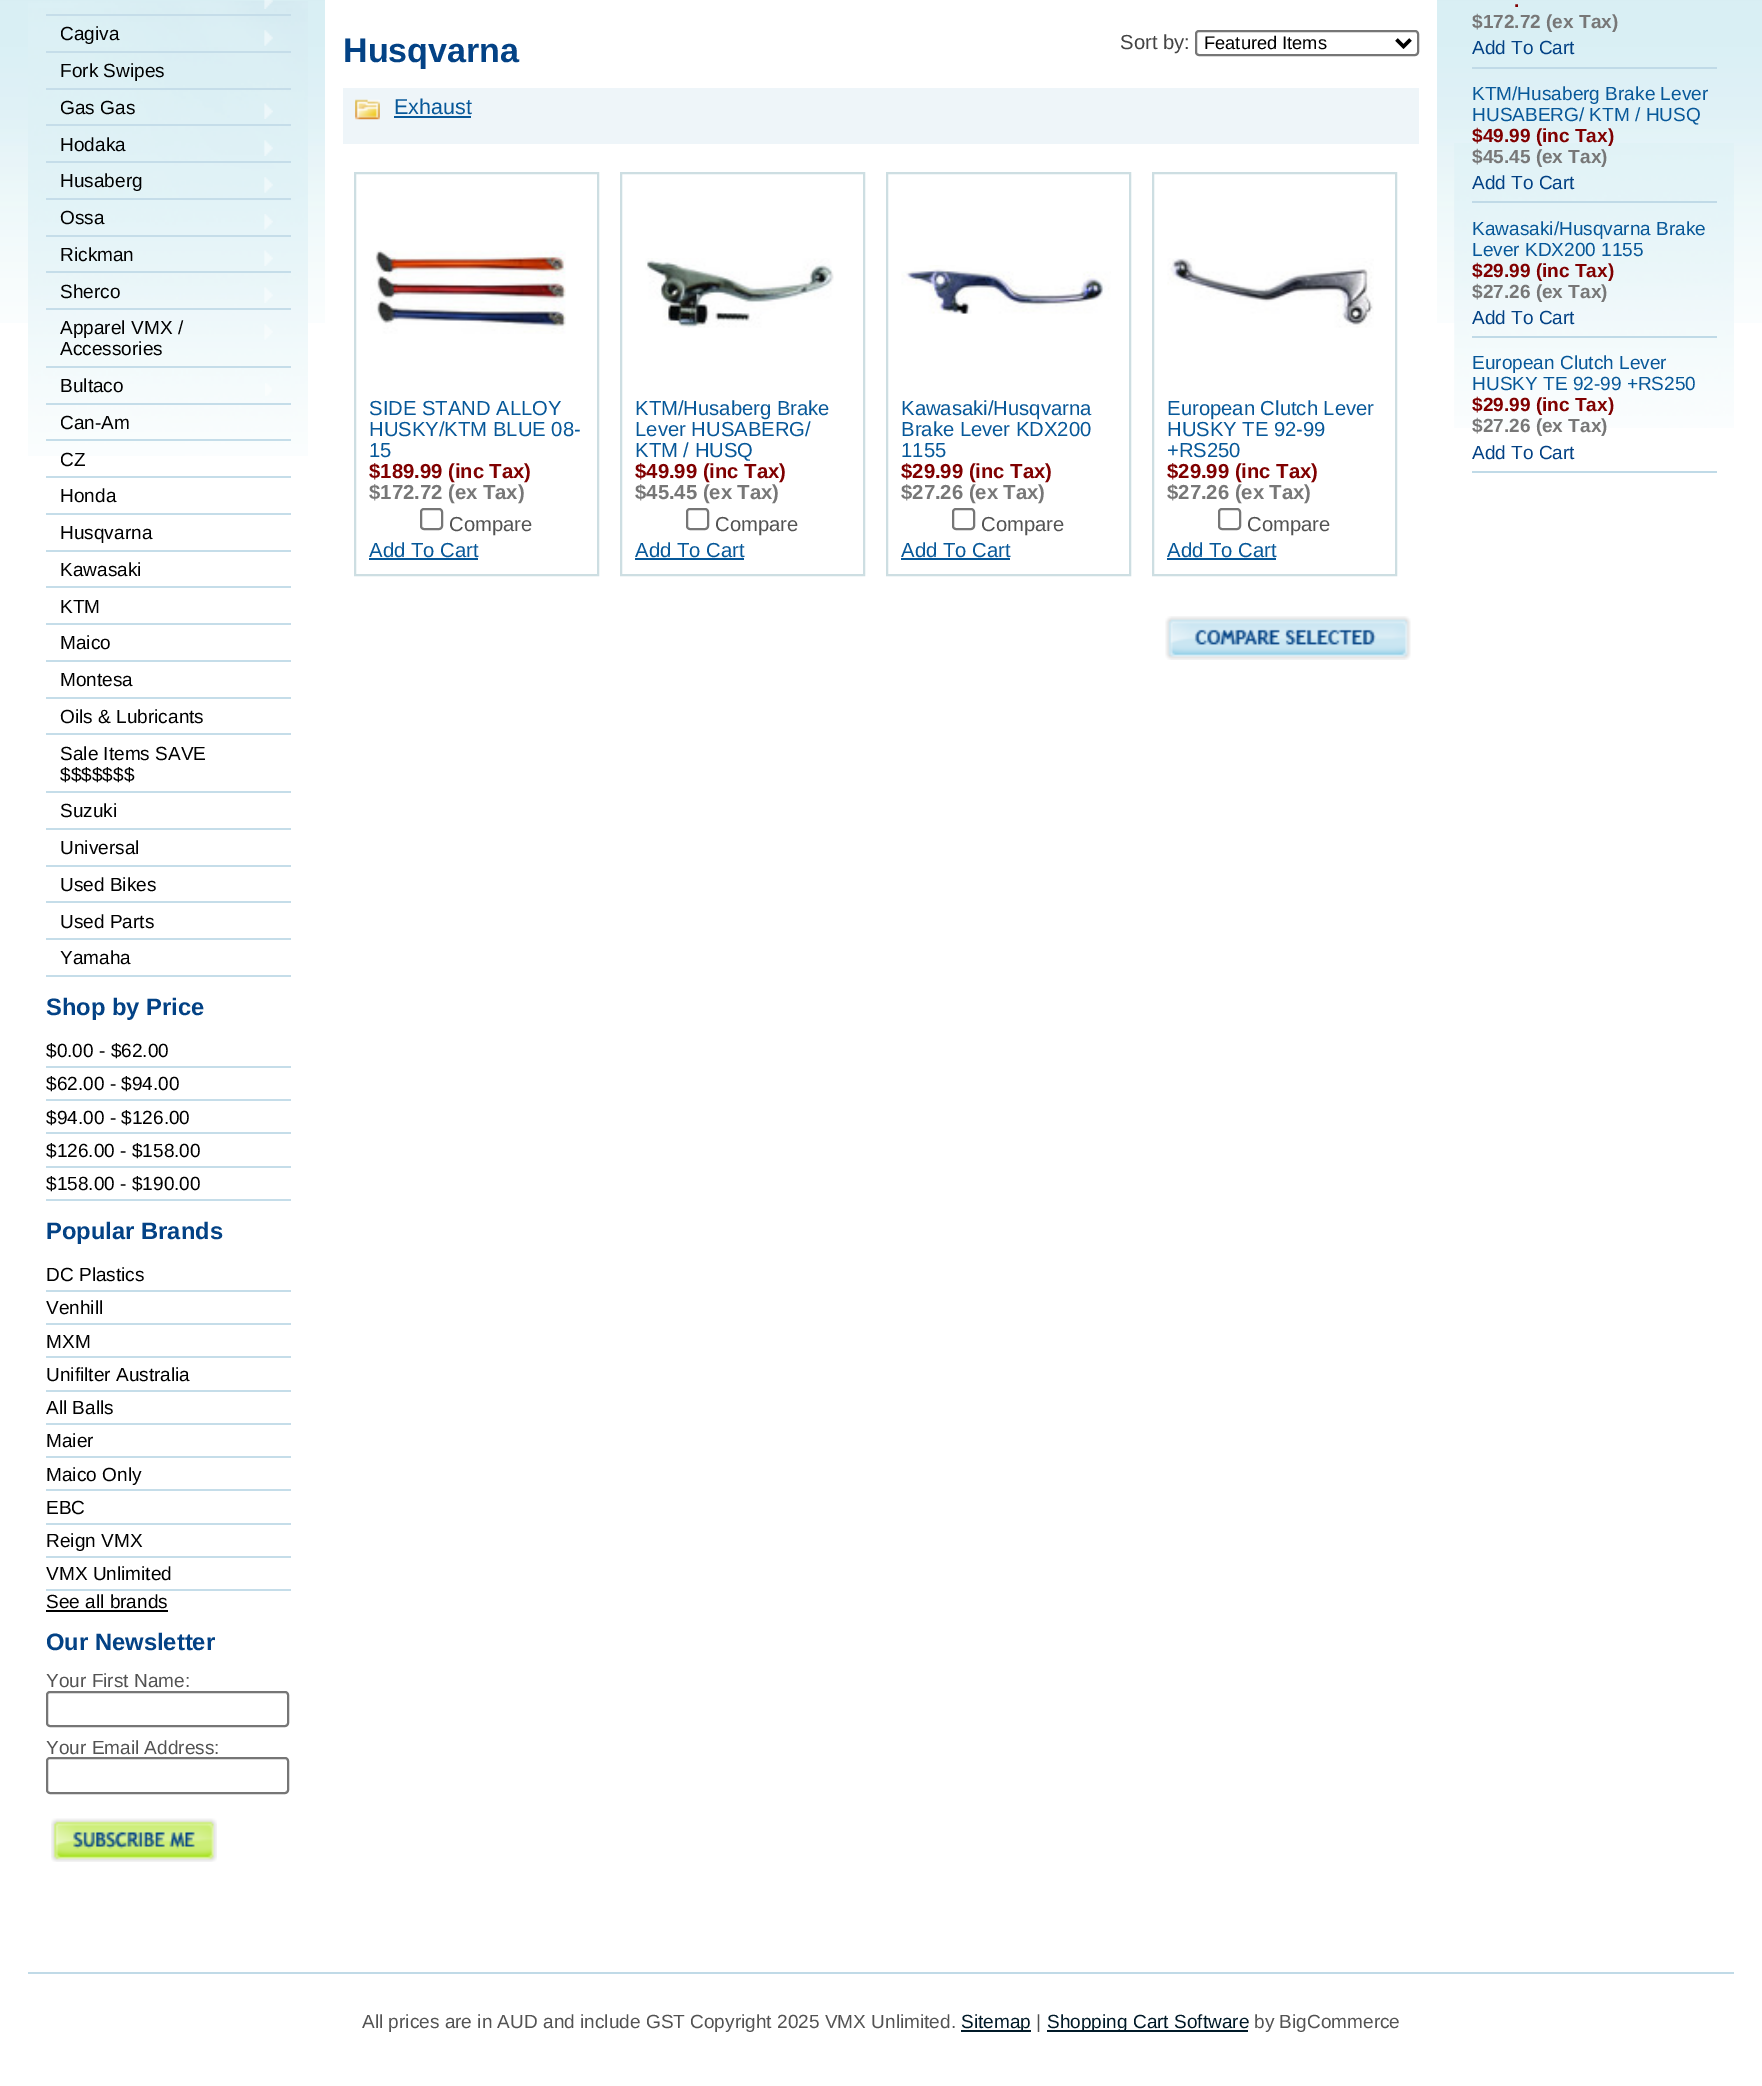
%!PS
<< /PageSize [1762 2086] >> setpagedevice
/rgb { 3 { 255 div 3 1 roll } repeat setrgbcolor } def
/font { [ exch dup neg 0 0 3 -1 roll 0 0 ] selectfont } def
/roundrect { 5 dict begin { /r /h /w /y /x } { exch def } forall
  x r add y moveto x w add y 2 copy h add r arct x w add y h add x 1 index r arct
  x y h add x y r arct x y 2 copy exch w add exch r arct closepath end } def
/picture { 5 dict begin { /h /w /y /x /name } { exch def } forall
  gsave x y translate w h scale
  w h 8 [w 0 0 h 0 0] name (r) file false 3 colorimage grestore end } def
0 2086 translate 1 -1 scale
4 setmiterlimit
255 255 255 rgb
0 0 1762 2086 rectfill
(img/1.rgb) 0 0 1762 323 picture
(img/2.rgb) 28 1 280 455 picture
197 221 233 rgb
46 14 245 2 rectfill
(img/3.rgb) 264 0 9 9 picture
46 51 245 2 rectfill
(img/4.rgb) 264 30 9 16 picture
46 88 245 2 rectfill
46 124 245 2 rectfill
(img/5.rgb) 264 103 9 16 picture
46 161 245 2 rectfill
(img/6.rgb) 264 140 9 16 picture
46 198 245 2 rectfill
(img/7.rgb) 264 177 9 16 picture
46 235 245 2 rectfill
(img/8.rgb) 264 214 9 16 picture
46 271 245 2 rectfill
(img/9.rgb) 264 250 9 16 picture
46 308 245 2 rectfill
(img/10.rgb) 264 287 9 16 picture
46 366 245 2 rectfill
(img/11.rgb) 264 324 9 16 picture
46 403 245 2 rectfill
(img/12.rgb) 265 383 7 13 picture
[
  [46 439 245 2 197 221 233]
  [46 476 245 2 197 221 233]
  [46 513 245 2 197 221 233]
  [46 550 245 2 197 221 233]
  [46 586 245 2 197 221 233]
  [46 623 245 2 197 221 233]
  [46 660 245 2 197 221 233]
  [46 697 245 2 197 221 233]
  [46 733 245 2 197 221 233]
  [46 791 245 2 197 221 233]
  [46 828 245 2 197 221 233]
  [46 865 245 2 197 221 233]
  [46 901 245 2 197 221 233]
  [46 938 245 2 197 221 233]
  [46 975 245 2 197 221 233]
  [46 1066 245 2 197 221 233]
  [46 1099 245 2 197 221 233]
  [46 1132 245 2 197 221 233]
  [46 1166 245 2 197 221 233]
  [46 1199 245 2 197 221 233]
  [46 1290 245 2 197 221 233]
  [46 1323 245 2 197 221 233]
  [46 1356 245 2 197 221 233]
  [46 1390 245 2 197 221 233]
  [46 1423 245 2 197 221 233]
  [46 1456 245 2 197 221 233]
  [46 1489 245 2 197 221 233]
  [46 1523 245 2 197 221 233]
  [46 1556 245 2 197 221 233]
  [46 1589 245 2 197 221 233]
  [46 1610 122 2 0 0 0]
] { aload pop rgb rectfill } forall
118 118 118 rgb
2 setlinewidth
47 1692 241 34 3 roundrect stroke
47 1758 241 35 3 roundrect stroke
(img/13.rgb) 51 1818 166 44 picture
255 255 255 rgb
325 0 1112 323 rectfill
118 118 118 rgb
1196 31 222 24 3 roundrect stroke
0 0 0 rgb
3.5 setlinewidth
1396.5 39.5 moveto 1403.5 46.5 lineto 1410.5 39.5 lineto stroke
238 245 249 rgb
343 88 1076 56 rectfill
(img/14.rgb) 355 99 25 21 picture
7 88 153 rgb
394 116 77 2 rectfill
205 222 226 rgb
2 setlinewidth
355 173 243 402 rectstroke
(img/15.rgb) 370 250 196 84 picture
118 118 118 rgb
421 509 21 20 3 roundrect stroke
7 88 153 rgb
369 558 109 2 rectfill
205 222 226 rgb
621 173 243 402 rectstroke
(img/16.rgb) 645 258 189 70 picture
118 118 118 rgb
687 509 21 20 3 roundrect stroke
7 88 153 rgb
635 558 109 2 rectfill
205 222 226 rgb
887 173 243 402 rectstroke
(img/17.rgb) 901 265 210 49 picture
118 118 118 rgb
953 509 21 20 3 roundrect stroke
7 88 153 rgb
901 558 109 2 rectfill
205 222 226 rgb
1153 173 243 402 rectstroke
(img/18.rgb) 1167 258 207 70 picture
118 118 118 rgb
1219 509 21 20 3 roundrect stroke
7 88 153 rgb
1167 558 109 2 rectfill
(img/19.rgb) 1165 616 246 44 picture
(img/20.rgb) 1454 143 280 285 picture
[
  [1472 67 245 2 192 218 231]
  [1472 201 245 2 192 218 231]
  [1472 336 245 2 192 218 231]
  [1472 471 245 2 192 218 231]
  [28 1972 1706 2 192 218 231]
  [961 2030 70 2 0 25 39]
  [1047 2030 201 2 0 25 39]
] { aload pop rgb rectfill } forall
/LiberationSans-Regular 19.05 font
0 0 0 rgb
[
  [(Cagiva) 60 40]
  [(Fork Swipes) 60 77]
  [(Gas Gas) 60 114]
  [(Hodaka) 60 151]
  [(Husaberg) 60 187]
  [(Ossa) 60 224]
  [(Rickman) 60 261]
  [(Sherco) 60 298]
  [(Apparel VMX /) 60 334]
  [(Accessories) 60 355]
  [(Bultaco) 60 392]
  [(Can-Am) 60 429]
  [(CZ) 60 466]
  [(Honda) 60 502]
  [(Husqvarna) 60 539]
  [(Kawasaki) 60 576]
  [(KTM) 60 613]
  [(Maico) 60 649]
  [(Montesa) 60 686]
  [(Oils & Lubricants) 60 723]
  [(Sale Items SAVE) 60 760]
  [($$$$$$$) 60 781]
  [(Suzuki) 60 817]
  [(Universal) 60 854]
  [(Used Bikes) 60 891]
  [(Used Parts) 60 928]
  [(Yamaha) 60 964]
] { aload pop moveto show } forall
/LiberationSans-Bold 23.75 font
3 66 133 rgb
46 1015 moveto (Shop by Price) show
/LiberationSans-Regular 19.05 font
0 0 0 rgb
[
  [($0.00 - $62.00) 46 1057]
  [($62.00 - $94.00) 46 1090]
  [($94.00 - $126.00) 46 1124]
  [($126.00 - $158.00) 46 1157]
  [($158.00 - $190.00) 46 1190]
] { aload pop moveto show } forall
/LiberationSans-Bold 23.75 font
3 66 133 rgb
46 1239 moveto (Popular Brands) show
/LiberationSans-Regular 19.05 font
0 0 0 rgb
[
  [(DC Plastics) 46 1281]
  [(Venhill) 46 1314]
  [(MXM) 46 1348]
  [(Unifilter Australia) 46 1381]
  [(All Balls) 46 1414]
  [(Maier) 46 1447]
  [(Maico Only) 46 1481]
  [(EBC) 46 1514]
  [(Reign VMX) 46 1547]
  [(VMX Unlimited) 46 1580]
  [(See all brands) 46 1608]
] { aload pop moveto show } forall
/LiberationSans-Bold 23.75 font
3 66 133 rgb
46 1650 moveto (Our Newsletter) show
/LiberationSans-Regular 19.05 font
83 83 83 rgb
46 1687 moveto (Your First Name:) show
46 1754 moveto (Your Email Address:) show
/LiberationSans-Bold 34 font
3 66 133 rgb
343 62 moveto (Husqvarna) show
/LiberationSans-Regular 20.25 font
68 68 68 rgb
1120 49 moveto (Sort by:) show
/LiberationSans-Regular 18.25 font
0 0 0 rgb
1204 49 moveto (Featured Items) show
/LiberationSans-Regular 21.5 font
7 88 153 rgb
394 114 moveto (Exhaust) show
/LiberationSans-Regular 20.25 font
[
  [(SIDE STAND ALLOY) 369 415]
  [(HUSKY/KTM BLUE 08-) 369 436]
  [(15) 369 457]
] { aload pop moveto show } forall
/LiberationSans-Bold 20.25 font
128 0 0 rgb
369 478 moveto ($189.99 \(inc Tax\)) show
119 119 119 rgb
369 499 moveto ($172.72 \(ex Tax\)) show
/LiberationSans-Regular 20.25 font
83 83 83 rgb
449 531 moveto (Compare) show
7 88 153 rgb
[
  [(Add To Cart) 369 557]
  [(KTM/Husaberg Brake) 635 415]
  [(Lever HUSABERG/) 635 436]
  [(KTM / HUSQ) 635 457]
] { aload pop moveto show } forall
/LiberationSans-Bold 20.25 font
128 0 0 rgb
635 478 moveto ($49.99 \(inc Tax\)) show
119 119 119 rgb
635 499 moveto ($45.45 \(ex Tax\)) show
/LiberationSans-Regular 20.25 font
83 83 83 rgb
715 531 moveto (Compare) show
7 88 153 rgb
[
  [(Add To Cart) 635 557]
  [(Kawasaki/Husqvarna) 901 415]
  [(Brake Lever KDX200) 901 436]
  [(1155) 901 457]
] { aload pop moveto show } forall
/LiberationSans-Bold 20.25 font
128 0 0 rgb
901 478 moveto ($29.99 \(inc Tax\)) show
119 119 119 rgb
901 499 moveto ($27.26 \(ex Tax\)) show
/LiberationSans-Regular 20.25 font
83 83 83 rgb
981 531 moveto (Compare) show
7 88 153 rgb
[
  [(Add To Cart) 901 557]
  [(European Clutch Lever) 1167 415]
  [(HUSKY TE 92-99) 1167 436]
  [(+RS250) 1167 457]
] { aload pop moveto show } forall
/LiberationSans-Bold 20.25 font
128 0 0 rgb
1167 478 moveto ($29.99 \(inc Tax\)) show
119 119 119 rgb
1167 499 moveto ($27.26 \(ex Tax\)) show
/LiberationSans-Regular 20.25 font
83 83 83 rgb
1247 531 moveto (Compare) show
7 88 153 rgb
1167 557 moveto (Add To Cart) show
/LiberationSans-Bold 19.05 font
128 0 0 rgb
1514 7 moveto (.) show
119 119 119 rgb
1472 28 moveto ($172.72 \(ex Tax\)) show
/LiberationSans-Regular 19.05 font
3 66 133 rgb
1472 54 moveto (Add To Cart) show
7 88 153 rgb
1472 100 moveto (KTM/Husaberg Brake Lever) show
1472 121 moveto (HUSABERG/ KTM / HUSQ) show
/LiberationSans-Bold 19.05 font
128 0 0 rgb
1472 142 moveto ($49.99 \(inc Tax\)) show
119 119 119 rgb
1472 163 moveto ($45.45 \(ex Tax\)) show
/LiberationSans-Regular 19.05 font
3 66 133 rgb
1472 189 moveto (Add To Cart) show
7 88 153 rgb
1472 235 moveto (Kawasaki/Husqvarna Brake) show
1472 256 moveto (Lever KDX200 1155) show
/LiberationSans-Bold 19.05 font
128 0 0 rgb
1472 277 moveto ($29.99 \(inc Tax\)) show
119 119 119 rgb
1472 298 moveto ($27.26 \(ex Tax\)) show
/LiberationSans-Regular 19.05 font
3 66 133 rgb
1472 324 moveto (Add To Cart) show
7 88 153 rgb
1472 369 moveto (European Clutch Lever) show
1472 390 moveto (HUSKY TE 92-99 +RS250) show
/LiberationSans-Bold 19.05 font
128 0 0 rgb
1472 411 moveto ($29.99 \(inc Tax\)) show
119 119 119 rgb
1472 432 moveto ($27.26 \(ex Tax\)) show
/LiberationSans-Regular 19.05 font
3 66 133 rgb
1472 459 moveto (Add To Cart) show
83 83 83 rgb
362 2028 moveto (All prices are in AUD and include GST Copyright 2025 VMX Unlimited.) show
0 25 39 rgb
961 2028 moveto (Sitemap) show
83 83 83 rgb
1036 2028 moveto (|) show
0 25 39 rgb
1047 2028 moveto (Shopping Cart Software) show
83 83 83 rgb
1254 2028 moveto (by BigCommerce) show
showpage
